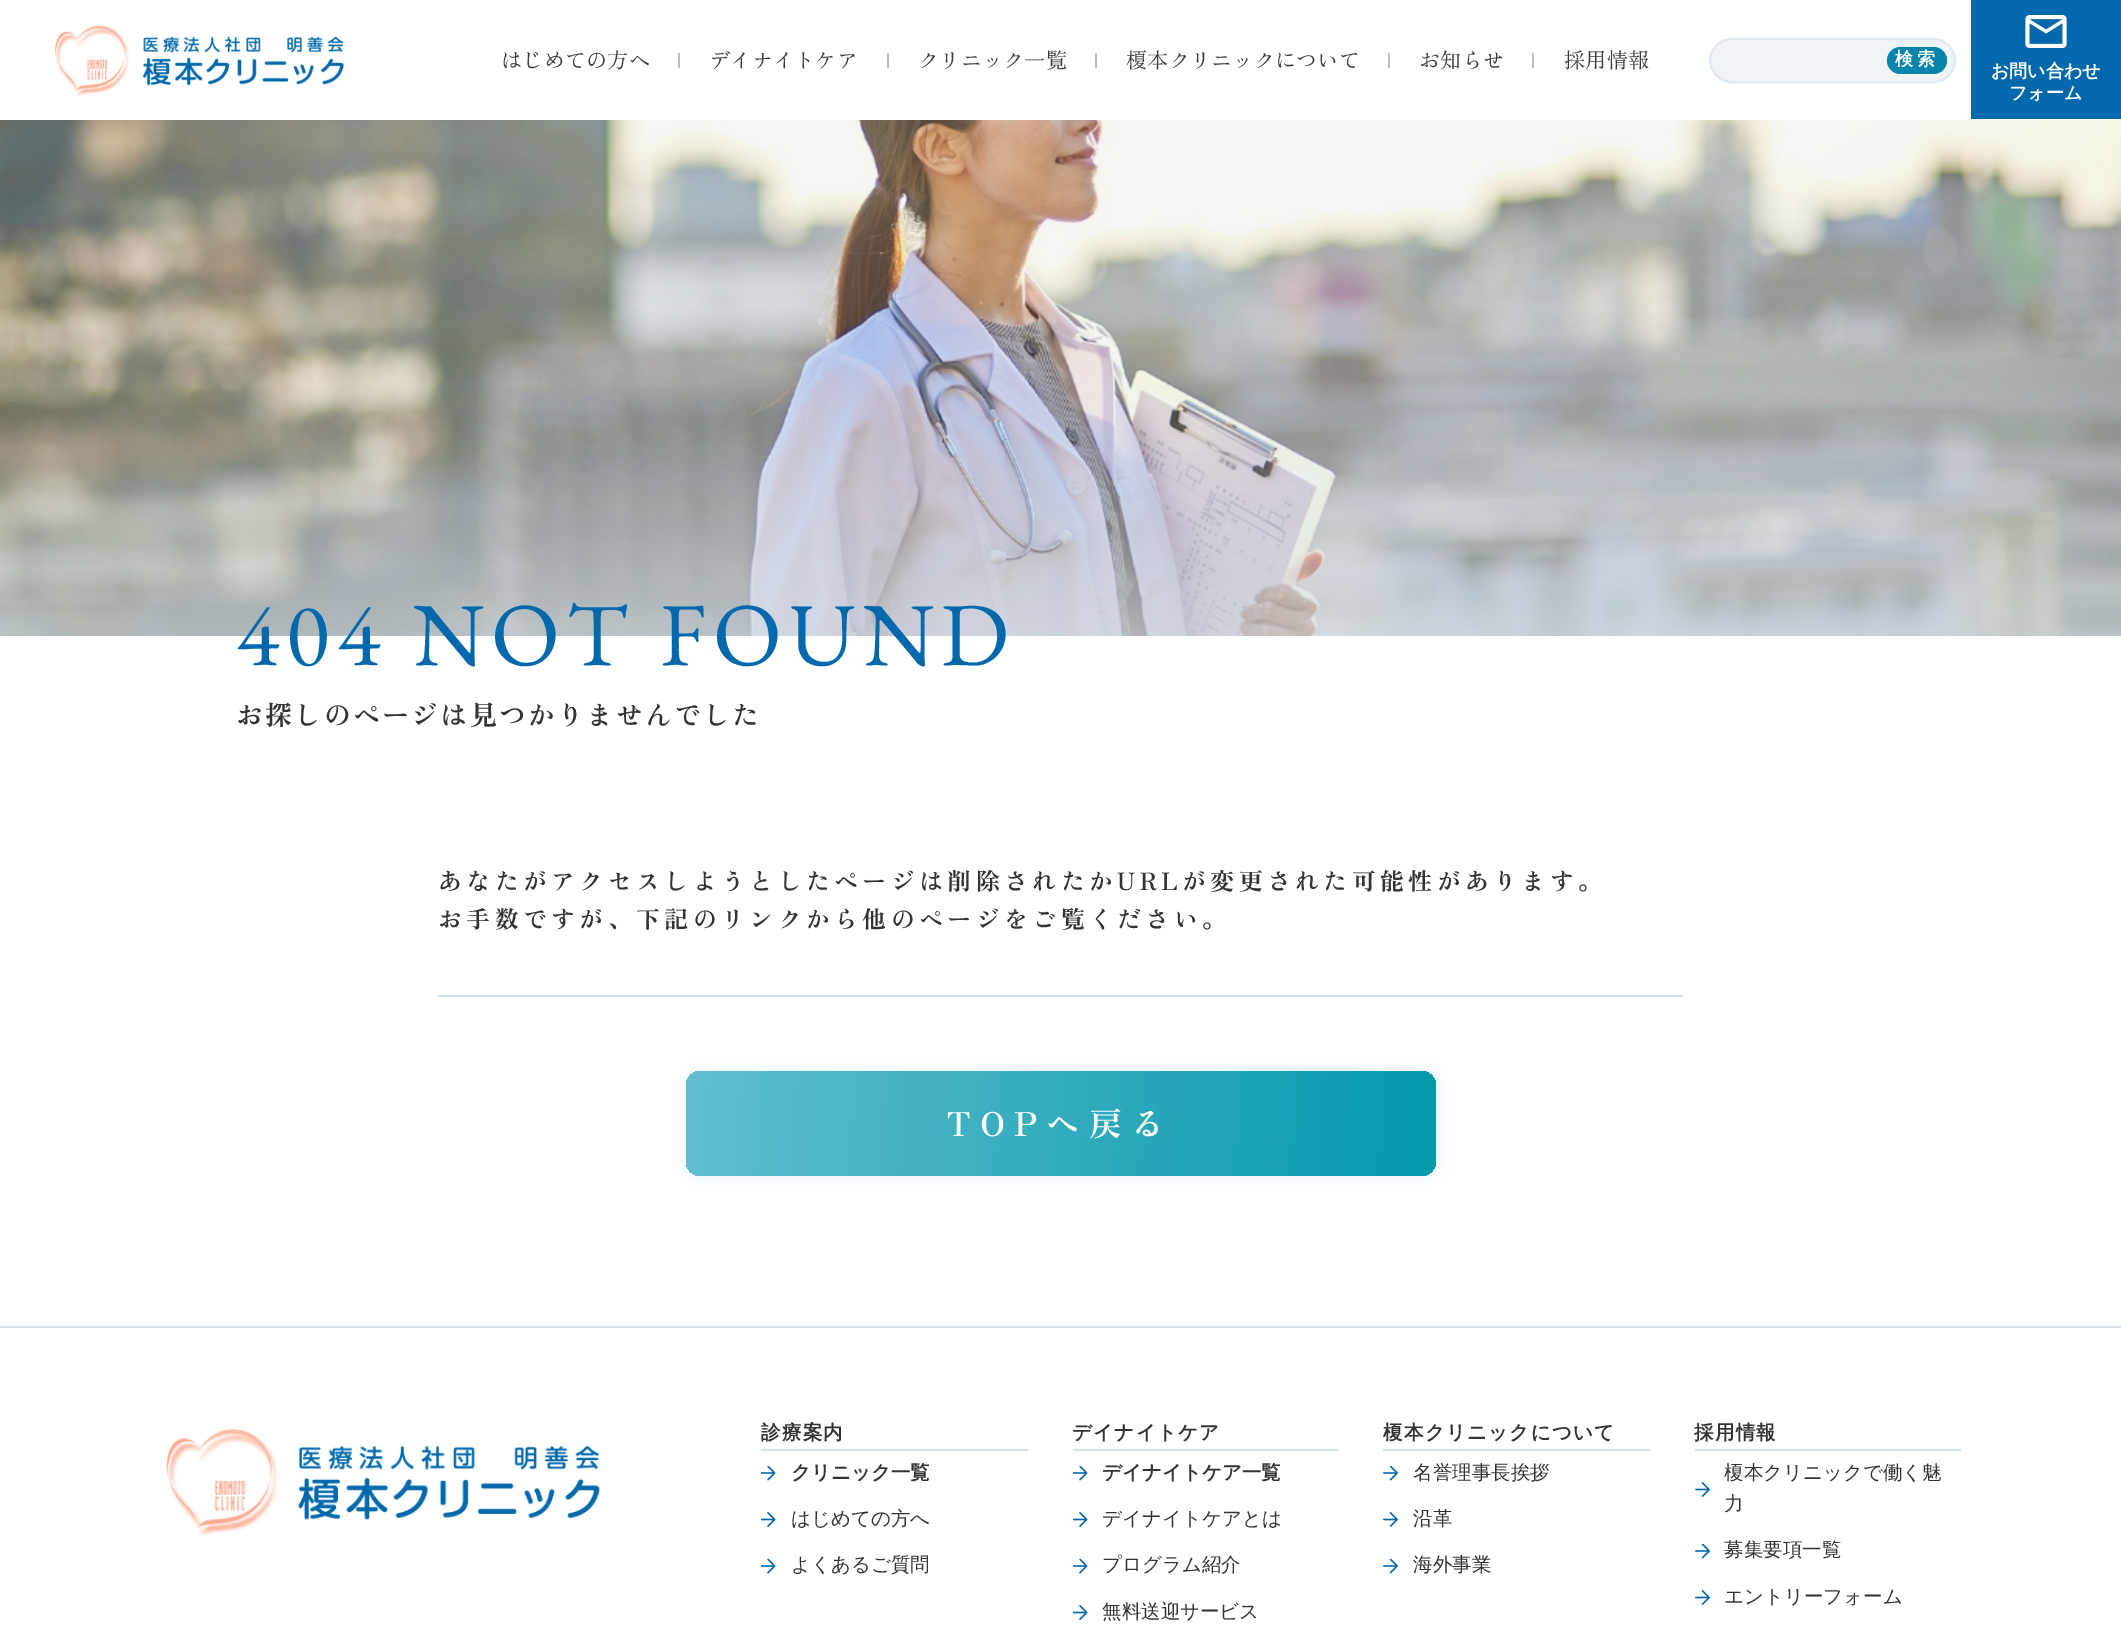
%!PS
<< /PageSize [2121 1648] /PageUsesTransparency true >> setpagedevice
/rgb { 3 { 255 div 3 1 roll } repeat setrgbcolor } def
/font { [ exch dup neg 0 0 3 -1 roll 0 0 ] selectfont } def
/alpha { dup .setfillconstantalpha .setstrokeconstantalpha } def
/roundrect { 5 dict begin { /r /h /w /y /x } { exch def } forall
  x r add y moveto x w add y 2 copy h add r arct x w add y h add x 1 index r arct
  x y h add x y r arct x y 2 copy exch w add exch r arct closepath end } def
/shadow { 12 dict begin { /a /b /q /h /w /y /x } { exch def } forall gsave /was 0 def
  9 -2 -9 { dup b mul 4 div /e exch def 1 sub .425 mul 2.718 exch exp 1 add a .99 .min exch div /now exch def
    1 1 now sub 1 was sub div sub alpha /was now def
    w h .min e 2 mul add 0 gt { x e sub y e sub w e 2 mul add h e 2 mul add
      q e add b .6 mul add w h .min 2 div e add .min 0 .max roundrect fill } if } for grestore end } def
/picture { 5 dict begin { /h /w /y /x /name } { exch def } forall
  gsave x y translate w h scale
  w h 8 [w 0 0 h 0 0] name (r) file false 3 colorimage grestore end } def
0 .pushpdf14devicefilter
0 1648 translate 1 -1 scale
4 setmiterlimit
255 255 255 rgb
0 0 2121 1648 rectfill
(img/1.rgb) 55 25 289 72 picture
[
  [678 53 2 15 182 190 196]
  [887 53 2 15 182 190 196]
  [1095 53 2 15 182 190 196]
  [1388 53 2 15 182 190 196]
  [1532 53 2 15 182 190 196]
] { aload pop rgb rectfill } forall
240 244 247 rgb
1710 39 245 43 21.5 roundrect gsave fill grestore
223 234 240 rgb
2 setlinewidth
stroke
5 133 172 rgb
1887 47 60 27 13.5 roundrect fill
4 105 172 rgb
1971 0 150 119 rectfill
(img/2.rgb) 2025 15 42 33 picture
(img/3.rgb) 0 120 2121 516 picture
213 223 230 rgb
438 995 1245 2 rectfill
4 105 172 rgb
686 1071 750 105 15 7.5 0.1 shadow
gsave 686 1071 750 105 15 roundrect clip newpath
<< /ShadingType 2 /ColorSpace /DeviceRGB /Coords [1437 1156 684 1091] /Extend [true true] /Function << /FunctionType 2 /Domain [0 1] /C0 [0.016 0.6 0.675] /C1 [0.384 0.749 0.816] /N 1 >> >> shfill grestore
213 223 230 rgb
0 1326 2121 2 rectfill
(img/4.rgb) 166 1428 435 109 picture
761 1449 267 2 rectfill
(img/5.rgb) 761 1466 15 15 picture
(img/6.rgb) 761 1512 15 15 picture
(img/5.rgb) 761 1559 15 15 picture
1073 1449 265 2 rectfill
(img/5.rgb) 1073 1466 15 15 picture
(img/6.rgb) 1073 1512 15 15 picture
(img/5.rgb) 1073 1559 15 15 picture
(img/6.rgb) 1073 1605 15 15 picture
1383 1449 267 2 rectfill
(img/7.rgb) 1383 1466 15 15 picture
(img/8.rgb) 1383 1512 15 15 picture
(img/7.rgb) 1383 1559 15 15 picture
1695 1449 266 2 rectfill
(img/8.rgb) 1695 1482 15 15 picture
(img/7.rgb) 1695 1544 15 15 picture
(img/8.rgb) 1695 1590 15 15 picture
/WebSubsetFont-Regular 21.25 font
59 59 59 rgb
[
  [(はじめての方へ) 501 68]
  [(デイナイトケア) 709 68]
  [(クリニック一覧) 918 68]
  [(榎本クリニックについて) 1126 68]
  [(お知らせ) 1419 68]
  [(採用情報) 1564 68]
] { aload pop moveto show } forall
/WenQuanYiZenHei-Bold 18 font
255 255 255 rgb
1895 65 moveto 4 0 (検索) ashow
1991 77 moveto (お問い合わせ) show
2009 99 moveto (フォーム) show
/EBGaramond-Regular 90 font
4 105 172 rgb
236 665 moveto 7.25 0 (404 NOT FOUND) ashow
/ZenOldMincho-Bold 27 font
51 51 51 rgb
236 725 moveto 2.2 0 (お探しのページは見つかりませんでした) ashow
/ZenOldMincho-Bold 24 font
438 890 moveto 4.3 0 (あなたがアクセスしようとしたページは削除されたかURLが変更された可能性があります。) ashow
438 928 moveto 4.3 0 (お手数ですが、下記のリンクから他のページをご覧ください。) ashow
/ZenOldMincho-Bold 33 font
255 255 255 rgb
947 1136 moveto 9.25 0 (TOPへ戻る) ashow
/WenQuanYiZenHei-Bold 19.5 font
51 51 51 rgb
761 1439 moveto 1.25 0 (診療案内) ashow
791 1479 moveto (クリニック一覧) show
/WenQuanYiZenHei-Medium 19.5 font
791 1525 moveto (はじめての方へ) show
791 1571 moveto (よくあるご質問) show
/WenQuanYiZenHei-Bold 19.5 font
1072 1439 moveto 1.25 0 (デイナイトケア) ashow
1102 1479 moveto (デイナイトケア一覧) show
/WenQuanYiZenHei-Medium 19.5 font
[
  [(デイナイトケアとは) 1102 1525]
  [(プログラム紹介) 1102 1571]
  [(無料送迎サービス) 1102 1618]
] { aload pop moveto show } forall
/WenQuanYiZenHei-Bold 19.5 font
1383 1439 moveto 1.25 0 (榎本クリニックについて) ashow
/WenQuanYiZenHei-Medium 19.5 font
[
  [(名誉理事長挨拶) 1413 1479]
  [(沿革) 1413 1525]
  [(海外事業) 1413 1571]
] { aload pop moveto show } forall
/WenQuanYiZenHei-Bold 19.5 font
1694 1439 moveto 1.25 0 (採用情報) ashow
/WenQuanYiZenHei-Medium 19.5 font
[
  [(榎本クリニックで働く魅) 1724 1479]
  [(力) 1724 1510]
  [(募集要項一覧) 1724 1556]
  [(エントリーフォーム) 1724 1603]
] { aload pop moveto show } forall
.poppdf14devicefilter showpage
